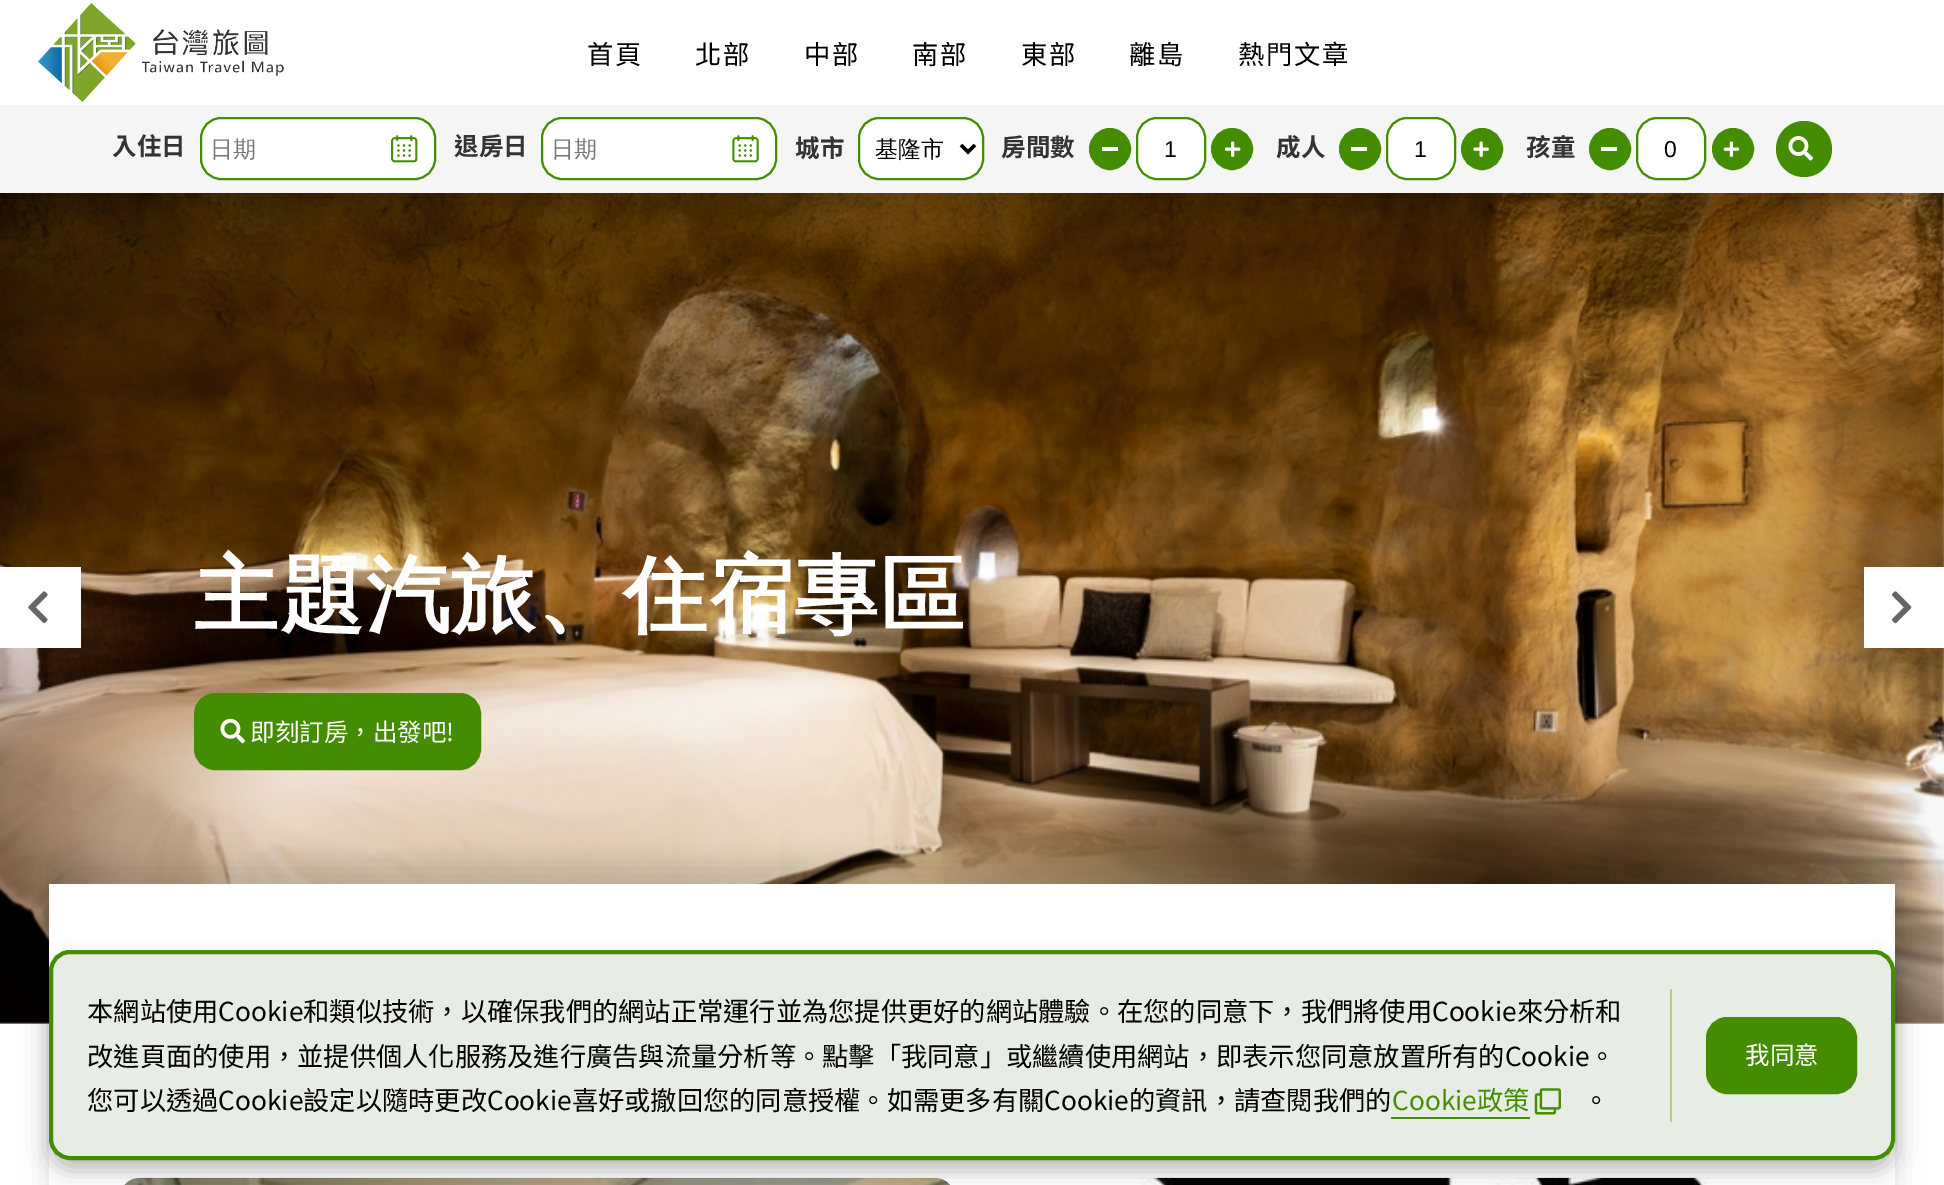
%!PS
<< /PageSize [1944 1185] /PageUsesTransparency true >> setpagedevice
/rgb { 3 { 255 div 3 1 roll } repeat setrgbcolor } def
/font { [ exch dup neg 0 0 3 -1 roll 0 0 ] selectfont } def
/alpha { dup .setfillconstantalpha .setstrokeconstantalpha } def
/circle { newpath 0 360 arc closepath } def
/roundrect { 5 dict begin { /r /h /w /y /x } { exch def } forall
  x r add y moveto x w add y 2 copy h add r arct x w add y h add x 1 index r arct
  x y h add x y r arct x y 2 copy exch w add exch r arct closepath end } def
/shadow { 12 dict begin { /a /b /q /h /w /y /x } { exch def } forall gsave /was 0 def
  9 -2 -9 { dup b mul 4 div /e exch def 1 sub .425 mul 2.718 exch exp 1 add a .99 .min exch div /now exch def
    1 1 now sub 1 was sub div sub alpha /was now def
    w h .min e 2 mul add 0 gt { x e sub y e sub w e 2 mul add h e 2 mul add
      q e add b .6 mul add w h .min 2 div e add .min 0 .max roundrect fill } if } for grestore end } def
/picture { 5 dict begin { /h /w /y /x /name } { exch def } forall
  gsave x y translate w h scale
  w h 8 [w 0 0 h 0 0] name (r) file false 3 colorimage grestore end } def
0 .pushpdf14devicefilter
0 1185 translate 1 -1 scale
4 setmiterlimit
255 255 255 rgb
0 0 1944 1185 rectfill
(img/8.rgb) 0 193 1944 831 picture
gsave
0 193 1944 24 rectclip
0 0 0 rgb
0 11 1944 192 0 14 0.12 shadow
grestore
(img/1.rgb) 38 3 246 99 picture
245 245 245 rgb
0 105 1944 88 rectfill
255 255 255 rgb
200 117 236 63 21 roundrect fill
(img/2.rgb) 391 135 27 28 picture
68 141 0 rgb
2 setlinewidth
201 118 234 61 20 roundrect stroke
255 255 255 rgb
541 117 236 63 21 roundrect fill
(img/3.rgb) 732 135 27 28 picture
68 141 0 rgb
542 118 234 61 20 roundrect stroke
255 255 255 rgb
859 118 124 61 20 roundrect gsave fill grestore
68 141 0 rgb
stroke
0 0 0 rgb
3.5 setlinewidth
961 145 moveto 968 152 lineto 975 145 lineto stroke
68 141 0 rgb
1110 149 20 circle gsave fill grestore
2 setlinewidth
stroke
255 255 255 rgb
1102 147 16 4 rectfill
1137 118 68 61 20 roundrect gsave fill grestore
68 141 0 rgb
stroke
1232 149 20 circle gsave fill grestore
stroke
(img/4.rgb) 1225 141 16 16 picture
1360 149 20 circle gsave fill grestore
stroke
255 255 255 rgb
1351 147 16 4 rectfill
1387 118 68 61 20 roundrect gsave fill grestore
68 141 0 rgb
stroke
1482 149 20 circle gsave fill grestore
stroke
(img/5.rgb) 1473 141 16 16 picture
1610 149 20 circle gsave fill grestore
stroke
255 255 255 rgb
1601 147 16 4 rectfill
1637 118 68 61 20 roundrect gsave fill grestore
68 141 0 rgb
stroke
1733 149 20 circle gsave fill grestore
stroke
(img/6.rgb) 1723 141 17 16 picture
1804 149 28 circle fill
(img/7.rgb) 1788 136 25 25 picture
196 695 283 73 19 roundrect gsave fill grestore
4 setlinewidth
stroke
(img/9.rgb) 220 718 25 26 picture
255 255 255 rgb
0 567 81 81 rectfill
(img/10.rgb) 28 591 20 33 picture
1864 567 80 81 rectfill
(img/11.rgb) 1892 591 20 33 picture
0 0 0 rgb
49 863 1846 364 0 14 0.12 shadow
255 255 255 rgb
49 884 1846 301 rectfill
(img/12.rgb) 124 1177 826 8 picture
(img/13.rgb) 1141 1177 568 8 picture
0 0 0 rgb
49 961 1846 210 21 10.5 0.25 shadow
231 237 228 rgb
51 952 1842 206 19 roundrect gsave fill grestore
68 141 0 rgb
stroke
170 209 133 rgb
1670 989 2 133 rectfill
68 141 0 rgb
1391 1117 139 2 rectfill
(img/14.rgb) 1534 1088 27 27 picture
1708 1019 147 73 19 roundrect gsave fill grestore
stroke
/NotoSansTC-Regular 26.25 font
0 0 0 rgb
587 64 moveto 1.75 0 (首頁) ashow
695 64 moveto 1.75 0 (北部) ashow
804 64 moveto 1.75 0 (中部) ashow
912 64 moveto 1.75 0 (南部) ashow
1021 64 moveto 1.75 0 (東部) ashow
1129 64 moveto 1.75 0 (離島) ashow
1238 64 moveto 1.75 0 (熱門文章) ashow
/NotoSansTC-Bold 24.5 font
51 51 51 rgb
112 155 moveto (入住日) show
/WenQuanYiZenHei-Medium 23 font
117 117 117 rgb
210 157 moveto (日期) show
/NotoSansTC-Bold 24.5 font
51 51 51 rgb
454 155 moveto (退房日) show
/WenQuanYiZenHei-Medium 23 font
117 117 117 rgb
551 157 moveto (日期) show
/NotoSansTC-Bold 24.5 font
51 51 51 rgb
795 157 moveto (城市) show
/WenQuanYiZenHei-Medium 23 font
0 0 0 rgb
875 157 moveto (基隆市) show
/NotoSansTC-Bold 24.5 font
51 51 51 rgb
1001 156 moveto (房間數) show
/LiberationSans-Regular 23 font
0 0 0 rgb
1164 157 moveto (1) show
/NotoSansTC-Bold 24.5 font
51 51 51 rgb
1276 156 moveto (成人) show
/LiberationSans-Regular 23 font
0 0 0 rgb
1414 157 moveto (1) show
/NotoSansTC-Bold 24.5 font
51 51 51 rgb
1526 156 moveto (孩童) show
/LiberationSans-Regular 23 font
0 0 0 rgb
1664 157 moveto (0) show
/WenQuanYiZenHei-Bold 84 font
255 255 255 rgb
194 624 moveto 1.75 0 (主題汽旅、住宿專區) ashow
/NotoSansTC-Regular 24.5 font
250 741 moveto (即刻訂房，出發吧!) show
/NotoSansTC-Regular 26.25 font
0 0 0 rgb
[
  [(本網站使用Cookie和類似技術，以確保我們的網站正常運行並為您提供更好的網站體驗。在您的同意下，我們將使用Cookie來分析和) 87 1021]
  [(改進頁面的使用，並提供個人化服務及進行廣告與流量分析等。點擊「我同意」或繼續使用網站，即表示您同意放置所有的Cookie。) 87 1066]
  [(您可以透過Cookie設定以隨時更改Cookie喜好或撤回您的同意授權。如需更多有關Cookie的資訊，請查閱我們的) 87 1110]
] { aload pop moveto show } forall
68 141 0 rgb
1392 1110 moveto (Cookie政策) show
0 0 0 rgb
1583 1110 moveto (。) show
/NotoSansTC-Regular 24.5 font
255 255 255 rgb
1745 1064 moveto (我同意) show
.poppdf14devicefilter showpage
